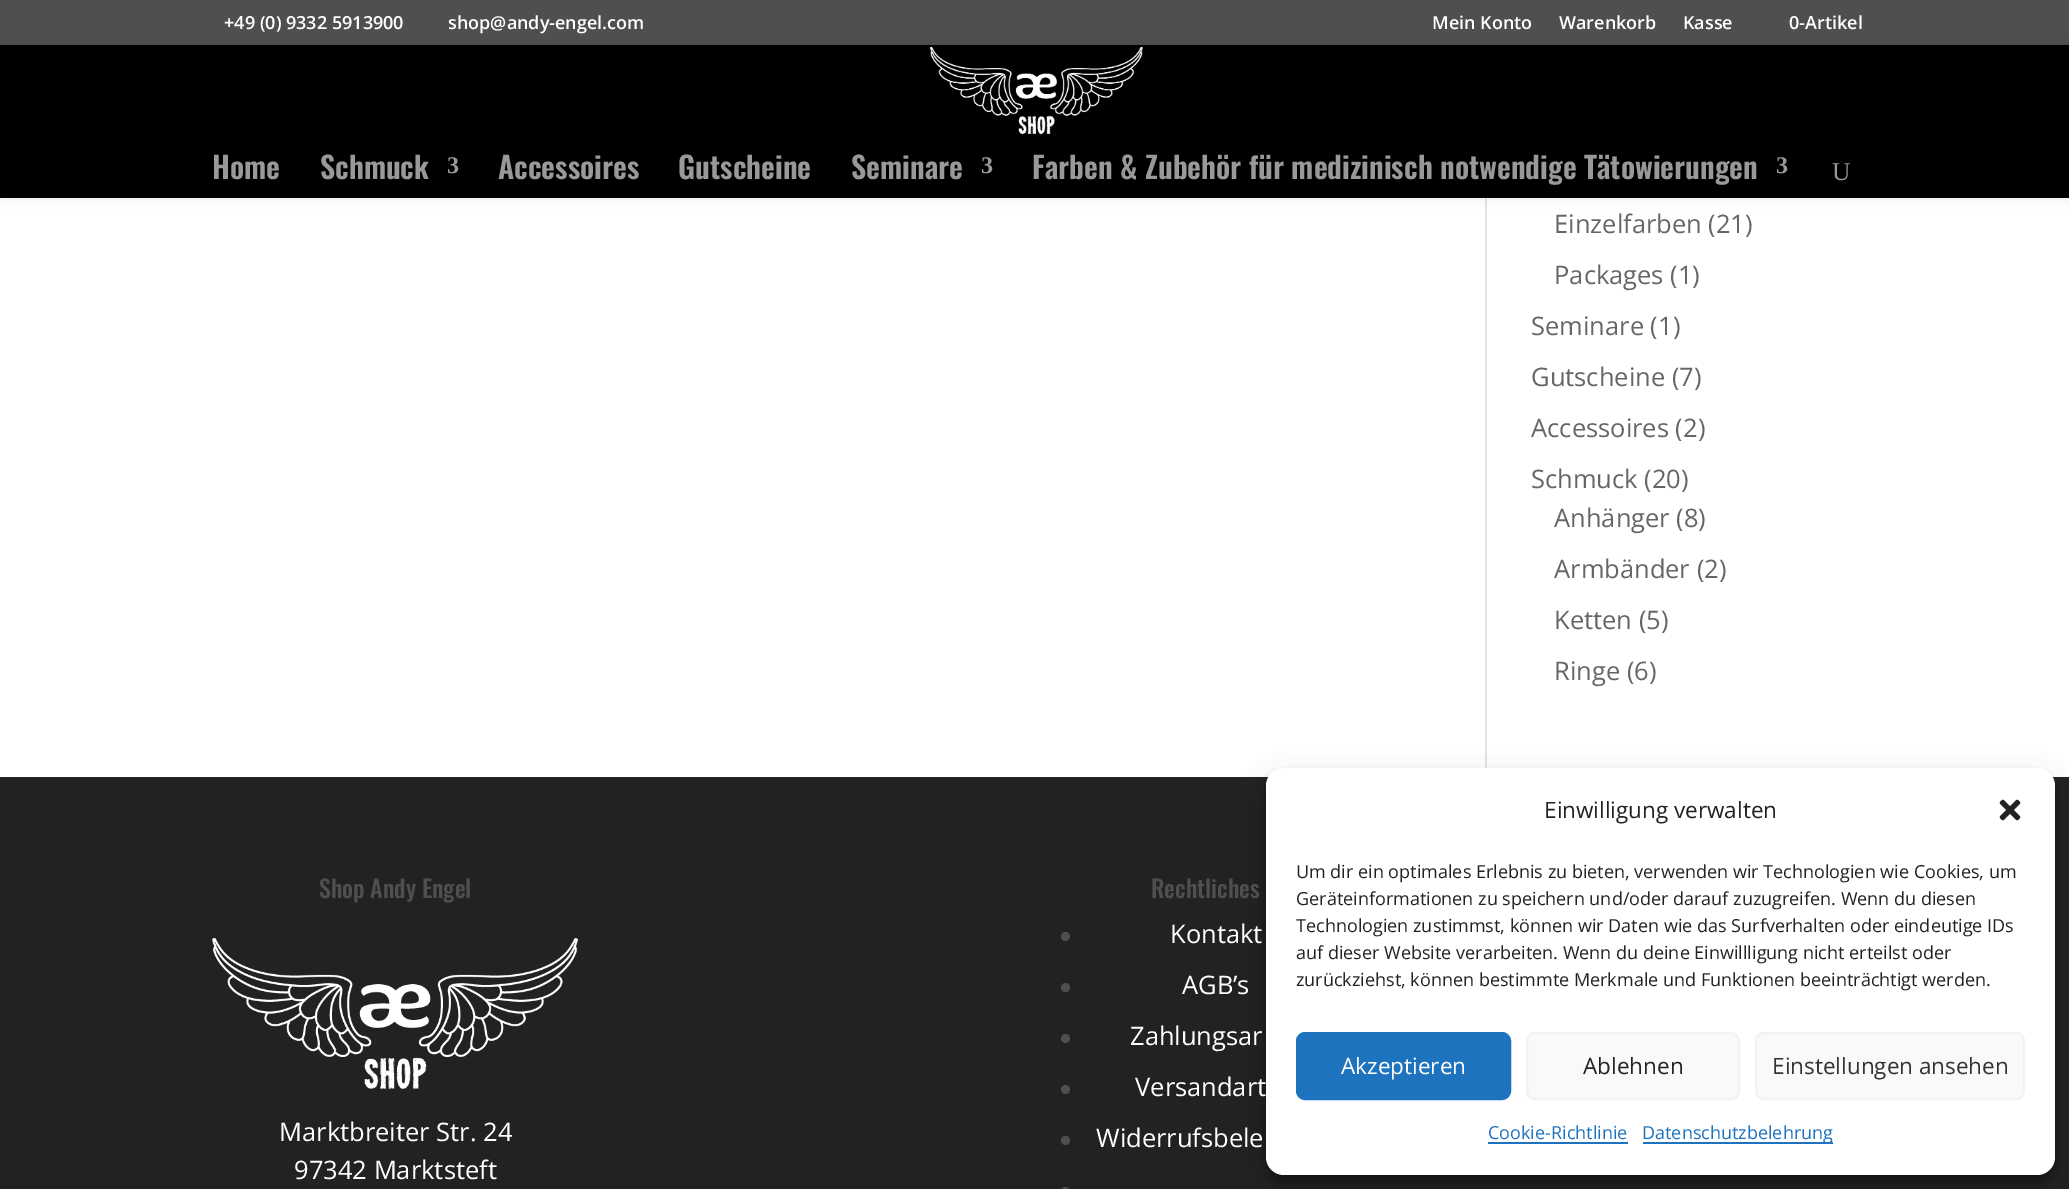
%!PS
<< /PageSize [2069 1189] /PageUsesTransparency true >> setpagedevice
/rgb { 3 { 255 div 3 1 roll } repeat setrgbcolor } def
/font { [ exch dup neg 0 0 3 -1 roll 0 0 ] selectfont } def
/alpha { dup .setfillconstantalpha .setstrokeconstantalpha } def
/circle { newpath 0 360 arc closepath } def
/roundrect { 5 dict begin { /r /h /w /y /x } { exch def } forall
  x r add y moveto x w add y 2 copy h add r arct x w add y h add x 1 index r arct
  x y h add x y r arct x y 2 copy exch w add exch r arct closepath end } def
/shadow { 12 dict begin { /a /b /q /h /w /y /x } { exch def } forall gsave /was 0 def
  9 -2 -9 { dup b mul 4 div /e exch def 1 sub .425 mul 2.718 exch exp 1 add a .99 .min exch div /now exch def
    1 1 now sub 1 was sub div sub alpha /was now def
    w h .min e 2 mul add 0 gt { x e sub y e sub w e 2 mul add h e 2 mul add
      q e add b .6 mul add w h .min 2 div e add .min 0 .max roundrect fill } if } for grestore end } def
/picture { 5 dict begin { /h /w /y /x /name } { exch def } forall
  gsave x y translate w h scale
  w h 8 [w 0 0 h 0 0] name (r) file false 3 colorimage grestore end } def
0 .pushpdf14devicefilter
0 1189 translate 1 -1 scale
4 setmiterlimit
255 255 255 rgb
0 0 2069 1189 rectfill
79 79 79 rgb
0 0 2069 45 rectfill
226 226 226 rgb
1485 198 2 570 rectfill
0 0 0 rgb
0 45 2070 153 0 5 0.1 shadow
0 45 2069 153 rectfill
(img/1.rgb) 930 46 213 89 picture
34 34 34 rgb
0 777 2069 412 rectfill
(img/2.rgb) 212 937 366 152 picture
79 79 79 rgb
1065.5 936.5 4.5 circle fill
1065.5 987.5 4.5 circle fill
1065.5 1038.5 4.5 circle fill
1065.5 1089.5 4.5 circle fill
1065.5 1140.5 4.5 circle fill
1061 1187 9 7 4.5 roundrect fill
0 0 0 rgb
1266 777 789 407 18 4.5 0.23 shadow
1266 783 789 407 18 15 0.19 shadow
255 255 255 rgb
1266 768 789 407 18 roundrect fill
(img/3.rgb) 1999 799 22 22 picture
30 115 190 rgb
1297 1033 213 66 8 roundrect gsave fill grestore
2 setlinewidth
stroke
249 249 249 rgb
1527 1033 212 66 8 roundrect gsave fill grestore
242 242 242 rgb
stroke
249 249 249 rgb
1756 1033 268 66 8 roundrect gsave fill grestore
242 242 242 rgb
stroke
30 115 190 rgb
1488 1142 140 2 rectfill
1643 1142 190 2 rectfill
/OpenSans-SemiBold 18 font
255 255 255 rgb
[
  [(+49 \(0\) 9332 5913900) 224 29]
  [(shop@andy-engel.com) 448 29]
  [(Mein Konto) 1432 29]
  [(Warenkorb) 1559 29]
  [(Kasse) 1683 29]
  [(0-Artikel) 1789 29]
] { aload pop moveto show } forall
/Oswald-SemiBold 30 font
153 153 153 rgb
212 179 moveto (Home) show
320 179 moveto (Schmuck) show
/LiberationSerif-Bold 24 font
447 173 moveto (3) show
/Oswald-SemiBold 30 font
[
  [(Accessoires) 498 179]
  [(Gutscheine) 678 179]
  [(Seminare) 851 179]
] { aload pop moveto show } forall
/LiberationSerif-Bold 24 font
981 173 moveto (3) show
/Oswald-SemiBold 30 font
1032 179 moveto (Farben & Zubehör für medizinisch notwendige Tätowierungen) show
/LiberationSerif-Bold 24 font
1776 173 moveto (3) show
/LiberationSerif-Regular 25.5 font
1832 180 moveto (U) show
/OpenSans-Regular 25.5 font
102 102 102 rgb
[
  [(Einzelfarben \(21\)) 1554 233]
  [(Packages \(1\)) 1554 284]
  [(Seminare \(1\)) 1531 335]
  [(Gutscheine \(7\)) 1531 386]
  [(Accessoires \(2\)) 1531 437]
  [(Schmuck \(20\)) 1531 488]
  [(Anhänger \(8\)) 1554 527]
  [(Armbänder \(2\)) 1554 578]
  [(Ketten \(5\)) 1554 629]
  [(Ringe \(6\)) 1554 680]
] { aload pop moveto show } forall
/Oswald-Medium 24 font
79 79 79 rgb
319 898 moveto (Shop Andy Engel) show
/OpenSans-Regular 25.5 font
255 255 255 rgb
279 1141 moveto (Marktbreiter Str. 24) show
294 1179 moveto (97342 Marktsteft) show
/Oswald-Medium 24 font
79 79 79 rgb
1151 898 moveto (Rechtliches) show
/OpenSans-Regular 25.5 font
255 255 255 rgb
[
  [(Kontakt) 1170 943]
  [(AGB’s) 1182 994]
  [(Zahlungsar) 1130 1045]
  [(Versandart) 1135 1096]
  [(Widerrufsbele) 1096 1147]
] { aload pop moveto show } forall
/OpenSans-Regular 22.5 font
34 34 34 rgb
1544 818 moveto (Einwilligung verwalten) show
/OpenSans-Regular 18 font
[
  [(Um dir ein optimales Erlebnis zu bieten, verwenden wir Technologien wie Cookies, um) 1296 878]
  [(Geräteinformationen zu speichern und/oder darauf zuzugreifen. Wenn du diesen) 1296 905]
  [(Technologien zustimmst, können wir Daten wie das Surfverhalten oder eindeutige IDs) 1296 932]
  [(auf dieser Website verarbeiten. Wenn du deine Einwillligung nicht erteilst oder) 1296 959]
  [(zurückziehst, können bestimmte Merkmale und Funktionen beeinträchtigt werden.) 1296 986]
] { aload pop moveto show } forall
/OpenSans-Regular 22.5 font
255 255 255 rgb
1341 1074 moveto (Akzeptieren) show
34 34 34 rgb
1583 1074 moveto (Ablehnen) show
51 51 51 rgb
1772 1074 moveto (Einstellungen ansehen) show
/OpenSans-Regular 18 font
30 115 190 rgb
1488 1139 moveto (Cookie-Richtlinie) show
1642 1139 moveto (Datenschutzbelehrung) show
.poppdf14devicefilter showpage
